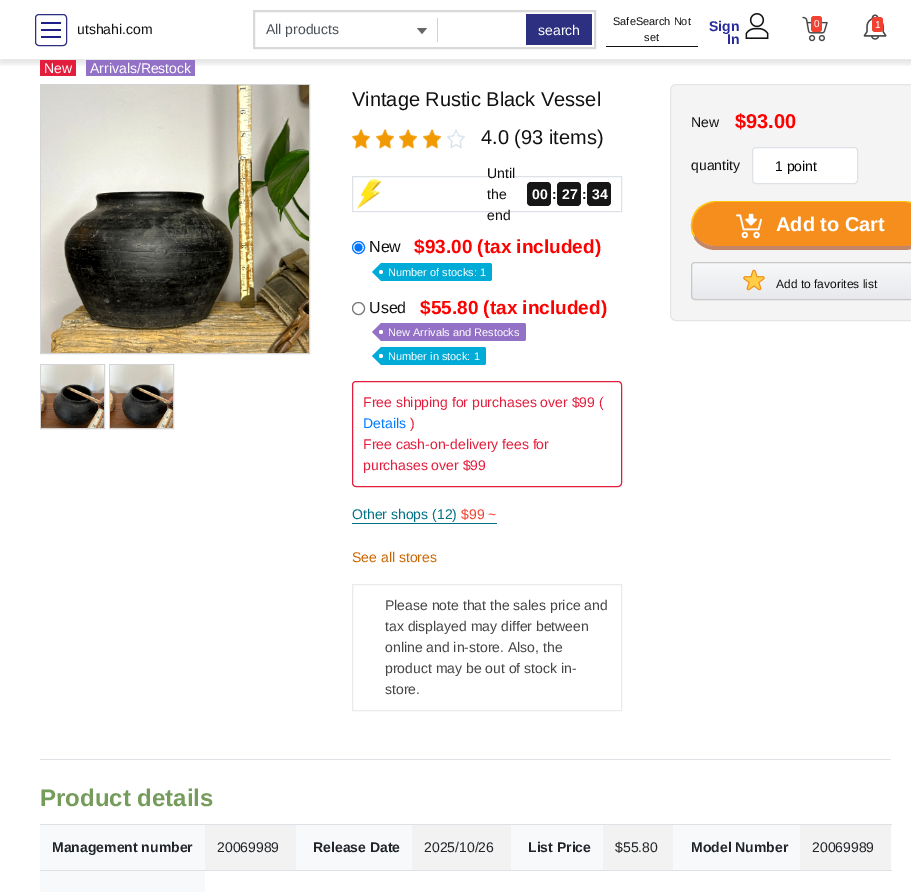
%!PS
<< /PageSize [911 892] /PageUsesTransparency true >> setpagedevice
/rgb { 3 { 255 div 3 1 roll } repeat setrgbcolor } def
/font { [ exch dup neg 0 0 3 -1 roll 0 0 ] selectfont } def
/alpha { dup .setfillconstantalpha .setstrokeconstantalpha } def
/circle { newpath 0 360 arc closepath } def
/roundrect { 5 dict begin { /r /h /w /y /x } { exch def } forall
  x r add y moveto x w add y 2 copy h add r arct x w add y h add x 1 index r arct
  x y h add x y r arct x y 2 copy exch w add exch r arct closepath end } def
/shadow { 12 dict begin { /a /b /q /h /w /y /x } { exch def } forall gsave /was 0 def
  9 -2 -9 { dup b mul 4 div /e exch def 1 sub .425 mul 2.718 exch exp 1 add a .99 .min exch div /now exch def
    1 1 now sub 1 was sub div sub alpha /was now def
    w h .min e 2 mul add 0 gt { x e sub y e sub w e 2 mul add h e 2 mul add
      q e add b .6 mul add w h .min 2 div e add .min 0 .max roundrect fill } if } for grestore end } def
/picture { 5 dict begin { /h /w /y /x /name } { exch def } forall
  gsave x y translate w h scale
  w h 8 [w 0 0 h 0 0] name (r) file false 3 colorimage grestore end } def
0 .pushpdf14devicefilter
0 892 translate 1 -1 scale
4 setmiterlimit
255 255 255 rgb
0 0 911 892 rectfill
gsave
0 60 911 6 rectclip
0 0 0 rgb
0 4 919 60 0 2.5 0.1 shadow
grestore
232 234 233 rgb
0 59 911 1 rectfill
45 48 129 rgb
35.5 14.5 31 31 3.5 roundrect stroke
[
  [41 22 20 2 29 32 136]
  [41 29 20 2 29 32 136]
  [41 36 20 2 29 32 136]
] { aload pop rgb rectfill } forall
216 217 216 rgb
2 setlinewidth
254 11 341 37 rectstroke
102 102 102 rgb
417 28 moveto 427 28 lineto 422 34 lineto closepath fill
[
  [437 18 1 24 210 210 210]
  [526 14 66 31 45 48 129]
  [606 46 92 1 17 17 17]
] { aload pop rgb rectfill } forall
(img/1.rgb) 745 13 24 26 picture
(img/2.rgb) 802 16 26 26 picture
242 65 48 rgb
811 16 11 16 3 roundrect fill
(img/3.rgb) 863 14 24 26 picture
872 17 11 15 3 roundrect fill
227 29 60 rgb
40 60 36 16 rectfill
146 113 198 rgb
86 60 109 16 rectfill
212 212 212 rgb
1 setlinewidth
40.5 84.5 269 269 rectstroke
(img/4.rgb) 41 85 268 268 picture
40.5 364.5 64 64 rectstroke
109.5 364.5 64 64 rectstroke
(img/5.rgb) 41 365 63 63 picture
(img/5.rgb) 110 365 63 63 picture
(img/6.rgb) 352 129 18 20 picture
(img/7.rgb) 376 129 18 20 picture
(img/6.rgb) 399 129 18 20 picture
(img/6.rgb) 423 129 18 20 picture
(img/8.rgb) 447 129 18 20 picture
222 226 230 rgb
352.5 176.5 269 35 rectstroke
(img/9.rgb) 357 179 24 30 picture
22 22 22 rgb
527 182 24 24 4 roundrect fill
557 182 24 24 4 roundrect fill
587 182 24 24 4 roundrect fill
0 117 255 rgb
358.5 247.5 6 circle stroke
358.5 247.5 4 circle fill
0 171 216 rgb
381 263 moveto 490 263 lineto 491 263 492 264 492 265 curveto 492 279 lineto 492 280 491 281 490 281 curveto 381 281 lineto closepath fill
381 263 moveto 381 281 lineto 372 272 lineto closepath fill
255 255 255 rgb
381 272 2 circle fill
118 118 118 rgb
358.5 308.5 6 circle stroke
146 113 198 rgb
381 323 moveto 524 323 lineto 525 323 526 324 526 325 curveto 526 339 lineto 526 340 525 341 524 341 curveto 381 341 lineto closepath fill
381 323 moveto 381 341 lineto 372 332 lineto closepath fill
255 255 255 rgb
381 332 2 circle fill
0 171 216 rgb
381 347 moveto 484 347 lineto 485 347 486 348 486 349 curveto 486 363 lineto 486 364 485 365 484 365 curveto 381 365 lineto closepath fill
381 347 moveto 381 365 lineto 372 356 lineto closepath fill
255 255 255 rgb
381 356 2 circle fill
227 29 60 rgb
352.5 381.5 269 105 3.5 roundrect stroke
0 113 133 rgb
352 523 145 1 rectfill
234 234 234 rgb
352.5 584.5 269 126 rectstroke
244 244 244 rgb
670.5 84.5 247 236 5.5 roundrect gsave fill grestore
229 229 229 rgb
stroke
255 255 255 rgb
752.5 147.5 105 36 3.5 roundrect gsave fill grestore
222 226 230 rgb
stroke
246 142 30 rgb
716 202 moveto 904 202 lineto 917 202 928 213 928 226 curveto 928 237 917 246 904 246 curveto 716 246 lineto 703 246 692 237 692 226 curveto 692 213 703 202 716 202 curveto closepath fill
255 193 7 rgb
716 201 moveto 709 201 703 204 698 208 curveto 699 209 lineto 704 205 710 202 716 202 curveto 904 202 lineto 910 202 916 205 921 209 curveto 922 208 lineto 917 204 911 201 904 201 curveto closepath fill
197 134 104 rgb
716 250 moveto 904 250 lineto 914 250 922 245 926 238 curveto 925 235 lineto 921 242 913 246 904 246 curveto 716 246 lineto 707 246 699 242 695 235 curveto 694 238 lineto 698 245 706 250 716 250 curveto closepath fill
255 193 7 rgb
694 237.5 moveto 688.5 228 690.5 216 698 208 curveto 699 209 lineto 692.5 216 689.5 227 694.5 235 curveto closepath fill
(img/10.rgb) 736 213 26 26 picture
gsave
691 262 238 38 4 roundrect clip newpath
gsave 691 263 moveto 911 263 lineto 911 299 lineto 691 299 lineto closepath clip newpath
<< /ShadingType 2 /ColorSpace /DeviceRGB /Coords [810 263 810 299] /Extend [true true] /Function << /FunctionType 2 /Domain [0 1] /C0 [0.969 0.973 0.98] /C1 [0.906 0.914 0.925] /N 1 >> >> shfill grestore
grestore
199 199 199 rgb
691.5 262.5 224 37 3.5 roundrect stroke
(img/11.rgb) 743 269 22 22 picture
[
  [40 759 851 1 222 226 230]
  [205 825 686 45 242 242 242]
  [40 825 165 45 248 249 250]
  [296 825 116 45 248 249 250]
  [511 825 92 45 248 249 250]
  [673 825 127 45 248 249 250]
  [40 824 852 1 222 226 230]
  [40 870 852 1 222 226 230]
  [40 871 165 21 248 249 250]
] { aload pop rgb rectfill } forall
/LiberationSans-Regular 14 font
17 17 17 rgb
77 34 moveto (utshahi.com) show
73 80 87 rgb
266 34 moveto (All products) show
255 255 255 rgb
538 35 moveto (search) show
/LiberationSans-Regular 11 font
17 17 17 rgb
613 25 moveto (SafeSearch Not) show
644 41 moveto (set) show
/LiberationSans-Bold 14 font
39 43 154 rgb
709 31 moveto (Sign) show
727 44 moveto (In) show
/LiberationSans-Regular 10 font
255 255 255 rgb
814 27 moveto (0) show
875 28 moveto (1) show
/LiberationSans-Regular 14 font
44 73 moveto (New) show
90 73 moveto (Arrivals/Restock) show
/LiberationSans-Regular 20 font
17 17 17 rgb
352 106 moveto (Vintage Rustic Black Vessel) show
481 144 moveto (4.0 \(93 items\)) show
/LiberationSans-Regular 14 font
[
  [(Until) 487 178]
  [(the) 487 199]
  [(end) 487 220]
] { aload pop moveto show } forall
/LiberationSans-Bold 14 font
255 255 255 rgb
532 199 moveto (00) show
17 17 17 rgb
552 199 moveto (:) show
255 255 255 rgb
562 199 moveto (27) show
17 17 17 rgb
582 199 moveto (:) show
255 255 255 rgb
592 199 moveto (34) show
/LiberationSans-Regular 16 font
17 17 17 rgb
369 252 moveto (New) show
/LiberationSans-Bold 19 font
255 0 0 rgb
414 253 moveto ($93.00 \(tax included\)) show
/LiberationSans-Regular 11 font
255 255 255 rgb
388 276 moveto (Number of stocks: 1) show
/LiberationSans-Regular 16 font
17 17 17 rgb
369 313 moveto (Used) show
/LiberationSans-Bold 19 font
255 0 0 rgb
420 314 moveto ($55.80 \(tax included\)) show
/LiberationSans-Regular 11 font
255 255 255 rgb
388 336 moveto (New Arrivals and Restocks) show
388 360 moveto (Number in stock: 1) show
/LiberationSans-Regular 14 font
227 29 60 rgb
363 407 moveto (Free shipping for purchases over $99 \() show
0 123 255 rgb
363 428 moveto (Details) show
227 29 60 rgb
[
  [(\)) 410 428]
  [(Free cash-on-delivery fees for) 363 449]
  [(purchases over $99) 363 470]
] { aload pop moveto show } forall
0 113 133 rgb
352 519 moveto (Other shops \(12\)) show
242 65 48 rgb
461 519 moveto ($99 ~) show
204 102 0 rgb
352 562 moveto (See all stores) show
69 69 69 rgb
[
  [(Please note that the sales price and) 385 610]
  [(tax displayed may differ between) 385 631]
  [(online and in-store. Also, the) 385 652]
  [(product may be out of stock in-) 385 673]
  [(store.) 385 694]
] { aload pop moveto show } forall
17 17 17 rgb
691 127 moveto (New) show
/LiberationSans-Bold 20 font
255 0 0 rgb
735 128 moveto ($93.00) show
/LiberationSans-Regular 14 font
17 17 17 rgb
691 170 moveto (quantity) show
0 0 0 rgb
775 171 moveto (1 point) show
/LiberationSans-Bold 20 font
255 255 255 rgb
776 231 moveto (Add to Cart) show
/LiberationSans-Regular 12 font
17 17 17 rgb
776 288 moveto (Add to favorites list) show
/LiberationSans-Bold 24 font
118 156 92 rgb
40 806 moveto (Product details) show
/LiberationSans-Bold 14 font
33 37 41 rgb
52 852 moveto (Management number) show
/LiberationSans-Regular 14 font
217 852 moveto (20069989) show
/LiberationSans-Bold 14 font
313 852 moveto (Release Date) show
/LiberationSans-Regular 14 font
424 852 moveto (2025/10/26) show
/LiberationSans-Bold 14 font
528 852 moveto (List Price) show
/LiberationSans-Regular 14 font
615 852 moveto ($55.80) show
/LiberationSans-Bold 14 font
691 852 moveto (Model Number) show
/LiberationSans-Regular 14 font
812 852 moveto (20069989) show
.poppdf14devicefilter showpage
